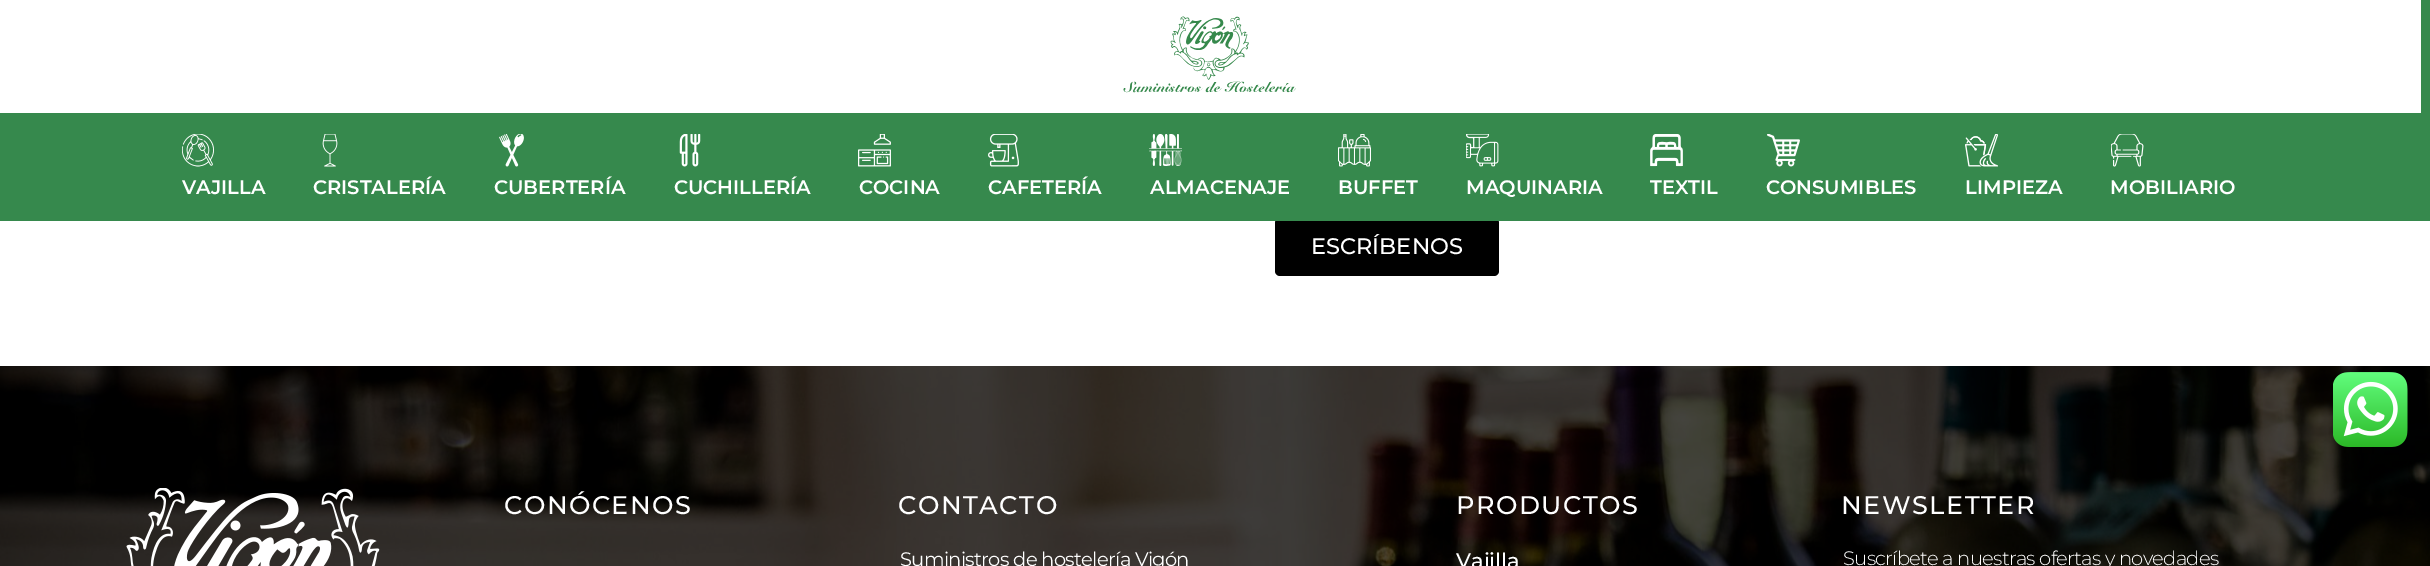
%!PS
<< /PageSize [2430 566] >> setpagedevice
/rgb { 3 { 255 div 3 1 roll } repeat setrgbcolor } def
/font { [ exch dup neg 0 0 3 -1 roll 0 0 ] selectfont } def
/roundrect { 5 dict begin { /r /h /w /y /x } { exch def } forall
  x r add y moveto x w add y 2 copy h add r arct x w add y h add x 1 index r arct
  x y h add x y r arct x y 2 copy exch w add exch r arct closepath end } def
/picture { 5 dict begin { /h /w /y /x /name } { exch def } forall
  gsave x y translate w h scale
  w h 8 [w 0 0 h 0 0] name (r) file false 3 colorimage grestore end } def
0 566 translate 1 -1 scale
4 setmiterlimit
255 255 255 rgb
0 0 2430 566 rectfill
0 0 0 rgb
1275 218 224 58 5 roundrect fill
54 137 77 rgb
0 0 2430 221 rectfill
255 255 255 rgb
0 0 2421 113 rectfill
(img/1.rgb) 1123 16 173 77 picture
(img/2.rgb) 182 134 32 33 picture
(img/3.rgb) 322 134 16 33 picture
(img/4.rgb) 499 134 25 33 picture
(img/5.rgb) 679 134 22 33 picture
(img/6.rgb) 858 134 33 33 picture
(img/7.rgb) 988 134 31 33 picture
(img/8.rgb) 1149 134 33 32 picture
(img/9.rgb) 1338 134 33 33 picture
(img/10.rgb) 1466 134 33 33 picture
(img/11.rgb) 1650 134 33 33 picture
(img/12.rgb) 1767 134 33 33 picture
(img/13.rgb) 1965 134 33 33 picture
(img/14.rgb) 2111 134 33 33 picture
(img/16.rgb) 0 366 2430 200 picture
(img/15.rgb) 2333 372 75 75 picture
(img/17.rgb) 126 488 254 78 picture
/Montserrat-SemiBold 19.5 font
[
  [(VAJILLA) 182 194]
  [(CRISTALERÍA) 313 194]
  [(CUBERTERÍA) 494 194]
  [(CUCHILLERÍA) 674 194]
  [(COCINA) 859 194]
  [(CAFETERÍA) 988 194]
  [(ALMACENAJE) 1150 194]
  [(BUFFET) 1338 194]
  [(MAQUINARIA) 1466 194]
  [(TEXTIL) 1650 194]
  [(CONSUMIBLES) 1766 194]
  [(LIMPIEZA) 1965 194]
  [(MOBILIARIO) 2110 194]
] { aload pop moveto show } forall
/Montserrat-Medium 22.5 font
1311 254 moveto (ESCRÍBENOS) show
/Montserrat-Medium 25.5 font
504 514 moveto 1.5 0 (CONÓCENOS) ashow
898 514 moveto 1.5 0 (CONTACTO) ashow
/Montserrat-Regular 19.5 font
900 566 moveto -0.7 0 (Suministros de hostelería Vigón) ashow
/Montserrat-Medium 25.5 font
1456 514 moveto 1.5 0 (PRODUCTOS) ashow
/Montserrat-Medium 21 font
1456 568 moveto (Vajilla) show
/Montserrat-Medium 25.5 font
1841 514 moveto 1.5 0 (NEWSLETTER) ashow
/Montserrat-Light 19.5 font
1843 565 moveto -0.7 0 (Suscríbete a nuestras ofertas y novedades) ashow
showpage
